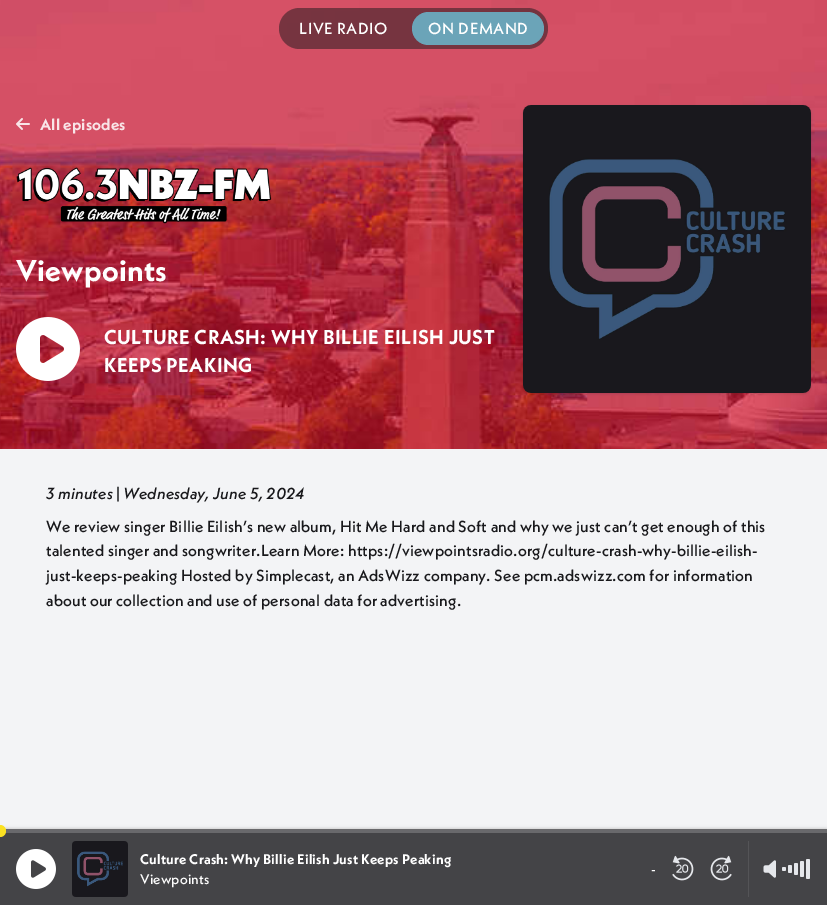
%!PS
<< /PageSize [827 905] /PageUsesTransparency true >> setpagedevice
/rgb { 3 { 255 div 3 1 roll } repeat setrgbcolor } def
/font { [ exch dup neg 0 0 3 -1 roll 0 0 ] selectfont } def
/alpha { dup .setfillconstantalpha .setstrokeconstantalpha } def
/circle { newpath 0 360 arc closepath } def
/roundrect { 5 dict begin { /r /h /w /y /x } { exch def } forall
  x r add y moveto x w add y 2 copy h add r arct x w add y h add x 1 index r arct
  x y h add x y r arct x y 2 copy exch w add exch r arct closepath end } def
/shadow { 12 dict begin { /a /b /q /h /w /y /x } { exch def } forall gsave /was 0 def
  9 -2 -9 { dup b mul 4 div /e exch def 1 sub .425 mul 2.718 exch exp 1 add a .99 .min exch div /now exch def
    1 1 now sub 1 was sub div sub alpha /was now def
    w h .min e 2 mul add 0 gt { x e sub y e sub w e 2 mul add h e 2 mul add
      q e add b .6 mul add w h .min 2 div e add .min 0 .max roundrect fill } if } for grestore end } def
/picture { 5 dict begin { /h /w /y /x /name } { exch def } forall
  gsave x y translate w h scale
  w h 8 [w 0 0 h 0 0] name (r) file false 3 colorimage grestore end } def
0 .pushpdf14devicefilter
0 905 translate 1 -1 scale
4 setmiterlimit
243 244 246 rgb
0 0 827 905 rectfill
(img/1.rgb) 0 0 827 449 picture
0.5 alpha
24 24 27 rgb
279 8 269 41 20.5 roundrect fill
1 alpha
107 164 184 rgb
412 12 132 33 16.5 roundrect fill
(img/2.rgb) 16 118 14 12 picture
(img/3.rgb) 16 167 256 57 picture
(img/4.rgb) 16 317 64 64 picture
0 0 0 rgb
524 107 286 286 7 1 0.1 shadow
523 106 288 288 8 1.5 0.1 shadow
0.1 alpha
24 24 27 rgb
523 105 288 288 8 roundrect fill
1 alpha
(img/5.rgb) 523 105 288 288 picture
0 0 0 rgb
1 829 825 74 0 1 0.1 shadow
0 828 827 76 0 1.5 0.1 shadow
68 68 71 rgb
0 833 827 72 rectfill
105 105 108 rgb
0 829 827 4 rectfill
251 225 34 rgb
0 831 6 circle fill
(img/6.rgb) 16 849 40 40 picture
(img/7.rgb) 72 841 56 56 picture
(img/8.rgb) 672 855 22 26 picture
(img/9.rgb) 710 855 22 26 picture
84 84 87 rgb
748 841 1 56 rectfill
(img/10.rgb) 763 860 13 18 picture
229 231 235 rgb
782 867 4 4 1.5 roundrect fill
788 865 4 8 1.5 roundrect fill
794 863 4 12 1.5 roundrect fill
800 861 4 16 1.5 roundrect fill
806 859 4 20 1.5 roundrect fill
/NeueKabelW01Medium-Medium 16 font
255 255 255 rgb
299 34 moveto 0.5 0 (LIVE RADIO) ashow
428 34 moveto 0.5 0 (ON DEMAND) ashow
/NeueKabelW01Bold-Bold 16 font
249 229 232 rgb
40 130 moveto 0.16 0 (All episodes) ashow
/NeueKabelW01Bold-Bold 30 font
255 255 255 rgb
16 281 moveto 0.25 0 (Viewpoints) ashow
/NeueKabelW01Bold-Bold 20 font
104 344 moveto 0.4 0 (CULTURE CRASH: WHY BILLIE EILISH JUST) ashow
104 372 moveto 0.4 0 (KEEPS PEAKING) ashow
/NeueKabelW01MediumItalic-MediumItalic 16 font
24 24 27 rgb
46 499 moveto 0.16 0 (3 minutes) ashow
/NeueKabelW01Medium-Medium 16 font
116 499 moveto 0.16 0 (|) ashow
/NeueKabelW01MediumItalic-MediumItalic 16 font
123 499 moveto 0.16 0 (Wednesday, June 5, 2024) ashow
/NeueKabelW01Medium-Medium 16 font
46 532 moveto 0.16 0 (We review singer Billie Eilish’s new album, Hit Me Hard and Soft and why we just can’t get enough of this) ashow
46 556 moveto 0.16 0 (talented singer and songwriter.Learn More: https://viewpointsradio.org/culture-crash-why-billie-eilish-) ashow
46 581 moveto 0.16 0 (just-keeps-peaking Hosted by Simplecast, an AdsWizz company. See pcm.adswizz.com for information) ashow
46 606 moveto 0.16 0 (about our collection and use of personal data for advertising.) ashow
/NeueKabelW01Bold-Bold 14 font
255 255 255 rgb
140 864 moveto 0.16 0 (Culture Crash: Why Billie Eilish Just Keeps Peaking) ashow
/NeueKabelW01Medium-Medium 14 font
140 884 moveto 0.16 0 (Viewpoints) ashow
651 874 moveto 0.16 0 (-) ashow
.poppdf14devicefilter showpage
